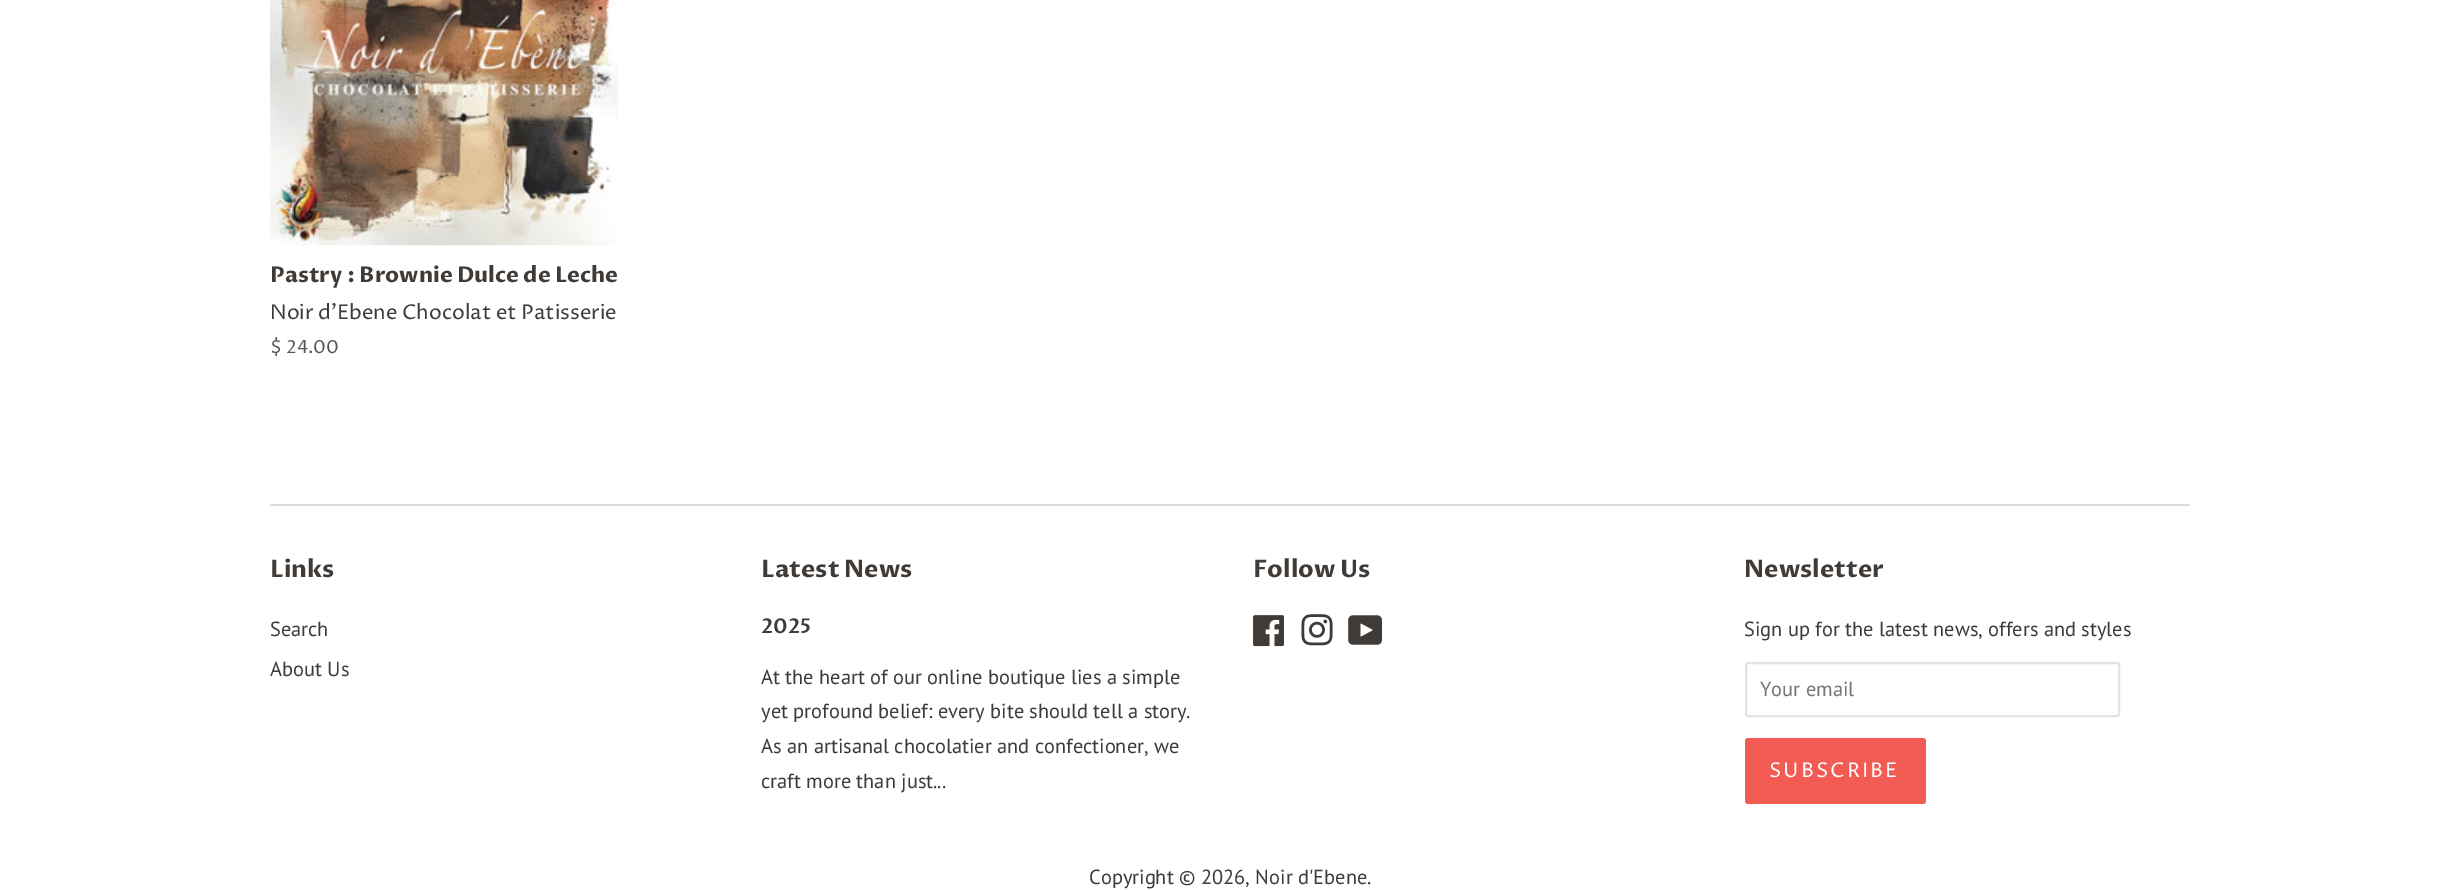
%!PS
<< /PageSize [2459 890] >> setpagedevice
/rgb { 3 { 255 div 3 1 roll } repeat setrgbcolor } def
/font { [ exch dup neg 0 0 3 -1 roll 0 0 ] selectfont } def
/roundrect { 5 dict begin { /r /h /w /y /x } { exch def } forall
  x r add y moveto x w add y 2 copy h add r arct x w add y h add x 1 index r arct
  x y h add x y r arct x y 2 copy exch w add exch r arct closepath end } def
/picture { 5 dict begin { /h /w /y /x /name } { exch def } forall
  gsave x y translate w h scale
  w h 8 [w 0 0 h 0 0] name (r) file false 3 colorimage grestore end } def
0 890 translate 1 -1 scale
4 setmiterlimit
255 255 255 rgb
0 0 2459 890 rectfill
(img/1.rgb) 270 0 348 246 picture
221 221 221 rgb
270 504 1920 2 rectfill
(img/2.rgb) 1253 615 31 32 picture
(img/3.rgb) 1301 614 32 32 picture
(img/4.rgb) 1348 615 34 30 picture
226 226 225 rgb
2 setlinewidth
1746 663 373 53 2 roundrect stroke
242 92 84 rgb
1745 738 181 66 3 roundrect fill
/ProzaLibre-Bold 21.6 font
64 59 55 rgb
270 282 moveto (Pastry : Brownie Dulce de Leche) show
/ProzaLibre-Regular 20.4 font
270 319 moveto (Noir d'Ebene Chocolat et Patisserie) show
/ProzaLibre-Regular 18 font
91 84 79 rgb
270 353 moveto ($ 24.00) show
/ProzaLibre-Bold 24 font
64 59 55 rgb
270 577 moveto (Links) show
/PTSans-Regular 20.4 font
270 636 moveto (Search) show
270 676 moveto (About Us) show
/ProzaLibre-Bold 24 font
761 577 moveto (Latest News) show
/ProzaLibre-SemiBold 20.4 font
761 633 moveto (2025) show
/PTSans-Regular 20.4 font
[
  [(At the heart of our online boutique lies a simple) 761 684]
  [(yet profound belief: every bite should tell a story.) 761 718]
  [(As an artisanal chocolatier and confectioner, we) 761 753]
  [(craft more than just...) 761 788]
] { aload pop moveto show } forall
/ProzaLibre-Bold 24 font
1253 577 moveto (Follow Us) show
1744 577 moveto (Newsletter) show
/PTSans-Regular 20.4 font
1744 636 moveto (Sign up for the latest news, offers and styles) show
117 117 117 rgb
1760 696 moveto (Your email) show
/ProzaLibre-Regular 20.4 font
255 255 255 rgb
1769 777 moveto 2 0 (SUBSCRIBE) ashow
/PTSans-Regular 20.4 font
64 59 55 rgb
1089 884 moveto (Copyright © 2026, Noir d'Ebene.) show
showpage
